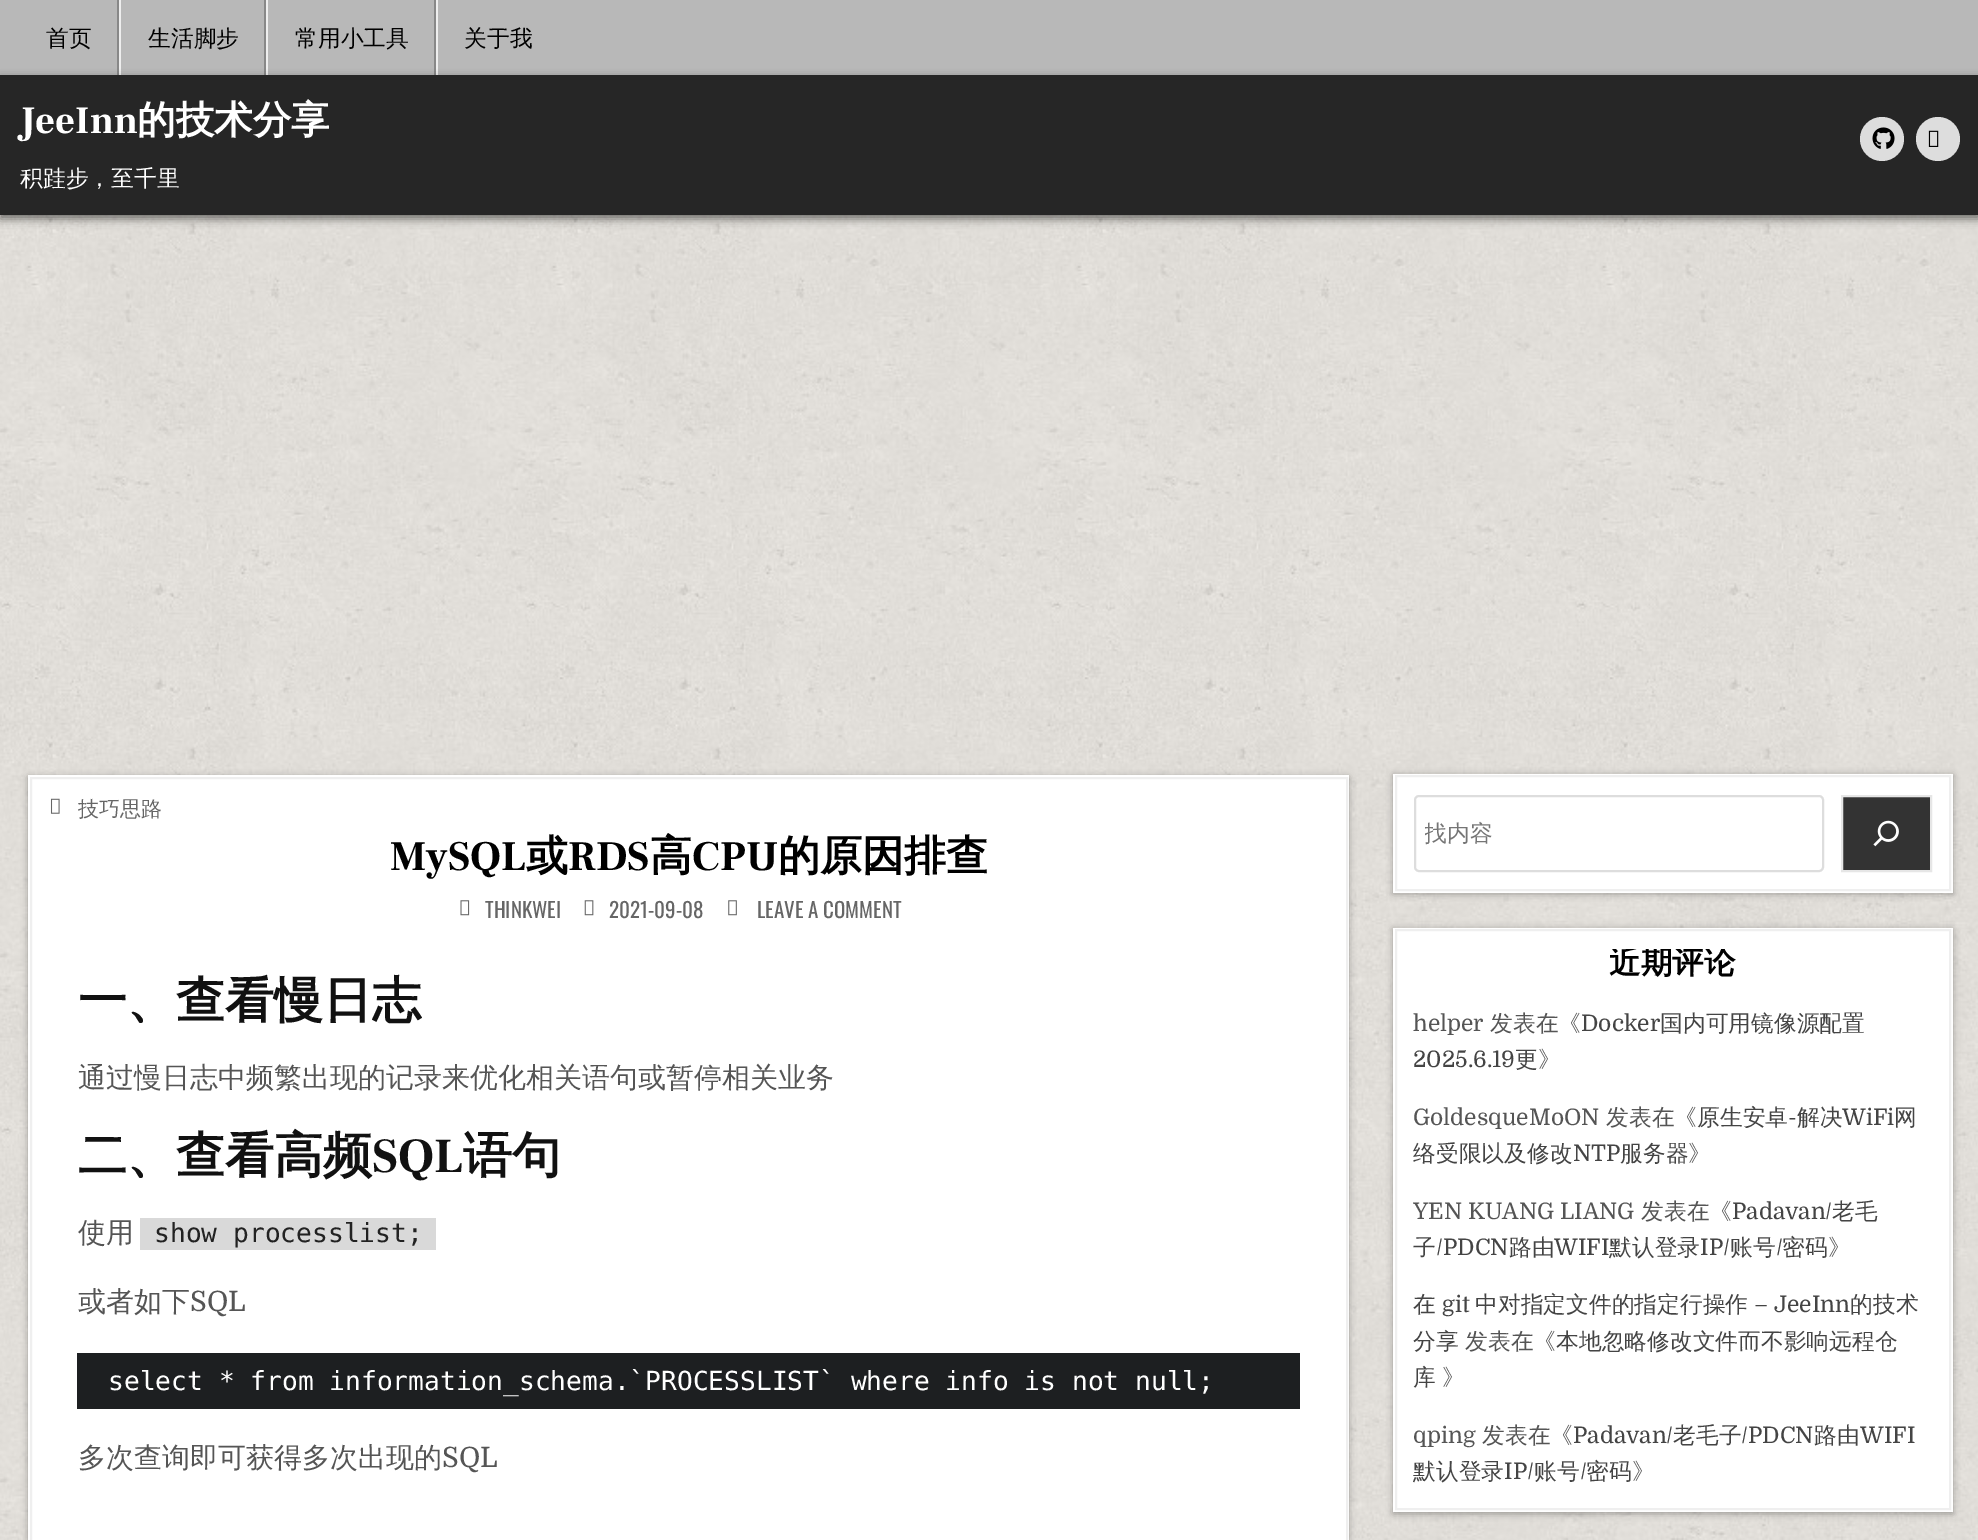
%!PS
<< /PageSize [1978 1540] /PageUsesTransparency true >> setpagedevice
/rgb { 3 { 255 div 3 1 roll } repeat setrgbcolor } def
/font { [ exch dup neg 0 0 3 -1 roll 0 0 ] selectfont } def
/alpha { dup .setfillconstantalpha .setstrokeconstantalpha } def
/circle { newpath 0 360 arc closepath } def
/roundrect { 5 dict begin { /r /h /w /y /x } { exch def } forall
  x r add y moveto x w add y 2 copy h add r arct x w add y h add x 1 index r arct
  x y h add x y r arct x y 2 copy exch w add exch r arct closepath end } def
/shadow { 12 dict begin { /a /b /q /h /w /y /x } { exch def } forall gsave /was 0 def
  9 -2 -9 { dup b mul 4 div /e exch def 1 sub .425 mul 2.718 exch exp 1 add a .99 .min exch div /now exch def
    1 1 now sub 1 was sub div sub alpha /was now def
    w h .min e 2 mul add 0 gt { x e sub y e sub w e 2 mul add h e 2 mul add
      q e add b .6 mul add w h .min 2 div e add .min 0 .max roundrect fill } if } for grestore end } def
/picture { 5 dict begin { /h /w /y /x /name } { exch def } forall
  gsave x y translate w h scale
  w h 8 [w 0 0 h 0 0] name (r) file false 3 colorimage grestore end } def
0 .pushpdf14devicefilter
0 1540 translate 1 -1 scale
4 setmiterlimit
255 255 255 rgb
0 0 1978 1540 rectfill
(img/1.rgb) 0 215 1978 1325 picture
[
  [0 0 1978 75 184 184 184]
  [117 0 2 75 136 136 136]
  [264 0 2 75 136 136 136]
  [119 0 2 75 238 238 238]
  [434 0 2 75 136 136 136]
  [266 0 2 75 238 238 238]
  [436 0 2 75 238 238 238]
] { aload pop rgb rectfill } forall
0 0 0 rgb
0 79 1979 140 0 4.5 0.5 shadow
38 38 38 rgb
0 75 1978 140 rectfill
221 221 221 rgb
1882 139 22 circle fill
(img/2.rgb) 1872 127 23 22 picture
1938 139 22 circle fill
(img/3.rgb) 1928 130 11 17 picture
0 0 0 rgb
28 777 1321 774 0 3.5 0.3 shadow
255 255 255 rgb
28 775 1321 765 rectfill
239 239 239 rgb
2 setlinewidth
31 778 1316 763 rectstroke
(img/4.rgb) 50 798 10 16 picture
(img/5.rgb) 460 900 10 16 picture
(img/6.rgb) 584 900 10 16 picture
(img/7.rgb) 728 900 9 16 picture
217 217 217 rgb
140 1218 296 32 rectfill
29 31 33 rgb
77 1353 1223 56 rectfill
0 0 0 rgb
1393 775 560 119 0 3.5 0.3 shadow
255 255 255 rgb
1393 774 560 119 rectfill
239 239 239 rgb
1396 776 554 114 rectstroke
221 221 221 rgb
1415 796 408 75 4 roundrect stroke
51 51 51 rgb
1842 796 moveto 1931 796 lineto 1931 871 lineto 1842 871 lineto closepath gsave fill grestore
230 230 230 rgb
stroke
(img/8.rgb) 1873 820 26 27 picture
0 0 0 rgb
1393 929 560 585 0 3.5 0.3 shadow
255 255 255 rgb
1393 928 560 584 rectfill
239 239 239 rgb
1396 930 554 579 rectstroke
/WenQuanYiZenHei-Medium 22.75 font
0 0 0 rgb
[
  [(首页) 46 46]
  [(生活脚步) 148 46]
  [(常用小工具) 295 46]
  [(关于我) 464 46]
] { aload pop moveto show } forall
/FrankRuhlLibre-Bold 38.5 font
255 255 255 rgb
20 133 moveto (JeeInn) show
/WenQuanYiZenHei-Bold 38.5 font
137 133 moveto (的技术分享) show
/WenQuanYiZenHei-Medium 22.75 font
20 186 moveto (积跬步，至千里) show
/WenQuanYiZenHei-Medium 21 font
102 102 102 rgb
78 816 moveto (技巧思路) show
/FrankRuhlLibre-Bold 42 font
0 0 0 rgb
390 870 moveto (MySQL) show
/WenQuanYiZenHei-Bold 42 font
526 870 moveto (或) show
/FrankRuhlLibre-Bold 42 font
568 870 moveto (RDS) show
/WenQuanYiZenHei-Bold 42 font
650 870 moveto (高) show
/FrankRuhlLibre-Bold 42 font
692 870 moveto (CPU) show
/WenQuanYiZenHei-Bold 42 font
778 870 moveto (的原因排查) show
/Oswald-Regular 21 font
102 102 102 rgb
[
  [(THINKWEI) 485 918]
  [(2021-09-08) 609 918]
  [(LEAVE A COMMENT) 757 918]
] { aload pop moveto show } forall
/WenQuanYiZenHei-Bold 49 font
17 17 17 rgb
78 1017 moveto (一、查看慢日志) show
/WenQuanYiZenHei-Medium 28 font
85 85 85 rgb
78 1087 moveto (通过慢日志中频繁出现的记录来优化相关语句或暂停相关业务) show
/WenQuanYiZenHei-Bold 49 font
17 17 17 rgb
78 1172 moveto (二、查看高频) show
/FrankRuhlLibre-Bold 49 font
372 1172 moveto (SQL) show
/WenQuanYiZenHei-Bold 49 font
463 1172 moveto (语句) show
/WenQuanYiZenHei-Medium 28 font
85 85 85 rgb
78 1242 moveto (使用) show
/DejaVuSansMono-Regular 26.25 font
34 34 34 rgb
154 1242 moveto (show processlist;) show
/WenQuanYiZenHei-Medium 28 font
85 85 85 rgb
78 1311 moveto (或者如下) show
/Domine-Regular 28 font
190 1311 moveto (SQL) show
/DejaVuSansMono-Regular 26.25 font
255 255 255 rgb
108 1390 moveto (select * from information_schema.`PROCESSLIST` where info is not null;) show
/WenQuanYiZenHei-Medium 28 font
85 85 85 rgb
78 1467 moveto (多次查询即可获得多次出现的) show
/Domine-Regular 28 font
442 1467 moveto (SQL) show
gsave
1425 819 381 32 rectclip
/WenQuanYiZenHei-Medium 22.75 font
117 117 117 rgb
1424 841 moveto (找内容) show
grestore
gsave
1414 949 518 31 rectclip
/WenQuanYiZenHei-Bold 31.5 font
0 0 0 rgb
1609 973 moveto (近期评论) show
grestore
/Domine-Regular 22.75 font
1413 1031 moveto (helper) show
/WenQuanYiZenHei-Medium 22.75 font
1490 1031 moveto (发表在《) show
/Domine-Regular 22.75 font
68 68 68 rgb
1581 1031 moveto (Docker) show
/WenQuanYiZenHei-Medium 22.75 font
1660 1031 moveto (国内可用镜像源配置) show
/Domine-Regular 22.75 font
1413 1067 moveto (2025.6.19) show
/WenQuanYiZenHei-Medium 22.75 font
1515 1067 moveto (更) show
85 85 85 rgb
1538 1067 moveto (》) show
/Domine-Regular 22.75 font
1413 1125 moveto (GoldesqueMoON) show
/WenQuanYiZenHei-Medium 22.75 font
1606 1125 moveto (发表在《) show
68 68 68 rgb
1697 1125 moveto (原生安卓) show
/Domine-Regular 22.75 font
1788 1125 moveto (-) show
/WenQuanYiZenHei-Medium 22.75 font
1797 1125 moveto (解决) show
/Domine-Regular 22.75 font
1842 1125 moveto (WiFi) show
/WenQuanYiZenHei-Medium 22.75 font
1894 1125 moveto (网) show
1413 1161 moveto (络受限以及修改) show
/Domine-Regular 22.75 font
1573 1161 moveto (NTP) show
/WenQuanYiZenHei-Medium 22.75 font
1620 1161 moveto (服务器) show
85 85 85 rgb
1688 1161 moveto (》) show
/Domine-Regular 22.75 font
1413 1219 moveto (YEN KUANG LIANG) show
/WenQuanYiZenHei-Medium 22.75 font
1641 1219 moveto (发表在《) show
/Domine-Regular 22.75 font
68 68 68 rgb
1732 1219 moveto (Padavan/) show
/WenQuanYiZenHei-Medium 22.75 font
1832 1219 moveto (老毛) show
1413 1255 moveto (子) show
/Domine-Regular 22.75 font
1436 1255 moveto (/PDCN) show
/WenQuanYiZenHei-Medium 22.75 font
1509 1255 moveto (路由) show
/Domine-Regular 22.75 font
1554 1255 moveto (WIFI) show
/WenQuanYiZenHei-Medium 22.75 font
1609 1255 moveto (默认登录) show
/Domine-Regular 22.75 font
1700 1255 moveto (IP/) show
/WenQuanYiZenHei-Medium 22.75 font
1730 1255 moveto (账号 密码) show
85 85 85 rgb
1828 1255 moveto (》) show
/Domine-Regular 22.75 font
68 68 68 rgb
1776 1255 moveto (/) show
/WenQuanYiZenHei-Medium 22.75 font
1413 1312 moveto (在) show
/Domine-Regular 22.75 font
1442 1312 moveto (git) show
/WenQuanYiZenHei-Medium 22.75 font
1475 1312 moveto (中对指定文件的指定行操作) show
/Domine-Regular 22.75 font
1754 1312 moveto (– JeeInn) show
/WenQuanYiZenHei-Medium 22.75 font
1850 1312 moveto (的技术) show
1413 1349 moveto (分享) show
85 85 85 rgb
1465 1349 moveto (发表在《) show
68 68 68 rgb
1556 1349 moveto (本地忽略修改文件而不影响远程仓) show
1413 1385 moveto (库) show
85 85 85 rgb
1442 1385 moveto (》) show
/Domine-Regular 22.75 font
1413 1443 moveto (qping) show
/WenQuanYiZenHei-Medium 22.75 font
1482 1443 moveto (发表在《) show
/Domine-Regular 22.75 font
68 68 68 rgb
1573 1443 moveto (Padavan/) show
/WenQuanYiZenHei-Medium 22.75 font
1673 1443 moveto (老毛子) show
/Domine-Regular 22.75 font
1741 1443 moveto (/PDCN) show
/WenQuanYiZenHei-Medium 22.75 font
1814 1443 moveto (路由) show
/Domine-Regular 22.75 font
1860 1443 moveto (WIFI) show
/WenQuanYiZenHei-Medium 22.75 font
1413 1479 moveto (默认登录) show
/Domine-Regular 22.75 font
1504 1479 moveto (IP/) show
/WenQuanYiZenHei-Medium 22.75 font
1534 1479 moveto (账号 密码) show
85 85 85 rgb
1632 1479 moveto (》) show
/Domine-Regular 22.75 font
68 68 68 rgb
1580 1479 moveto (/) show
.poppdf14devicefilter showpage
